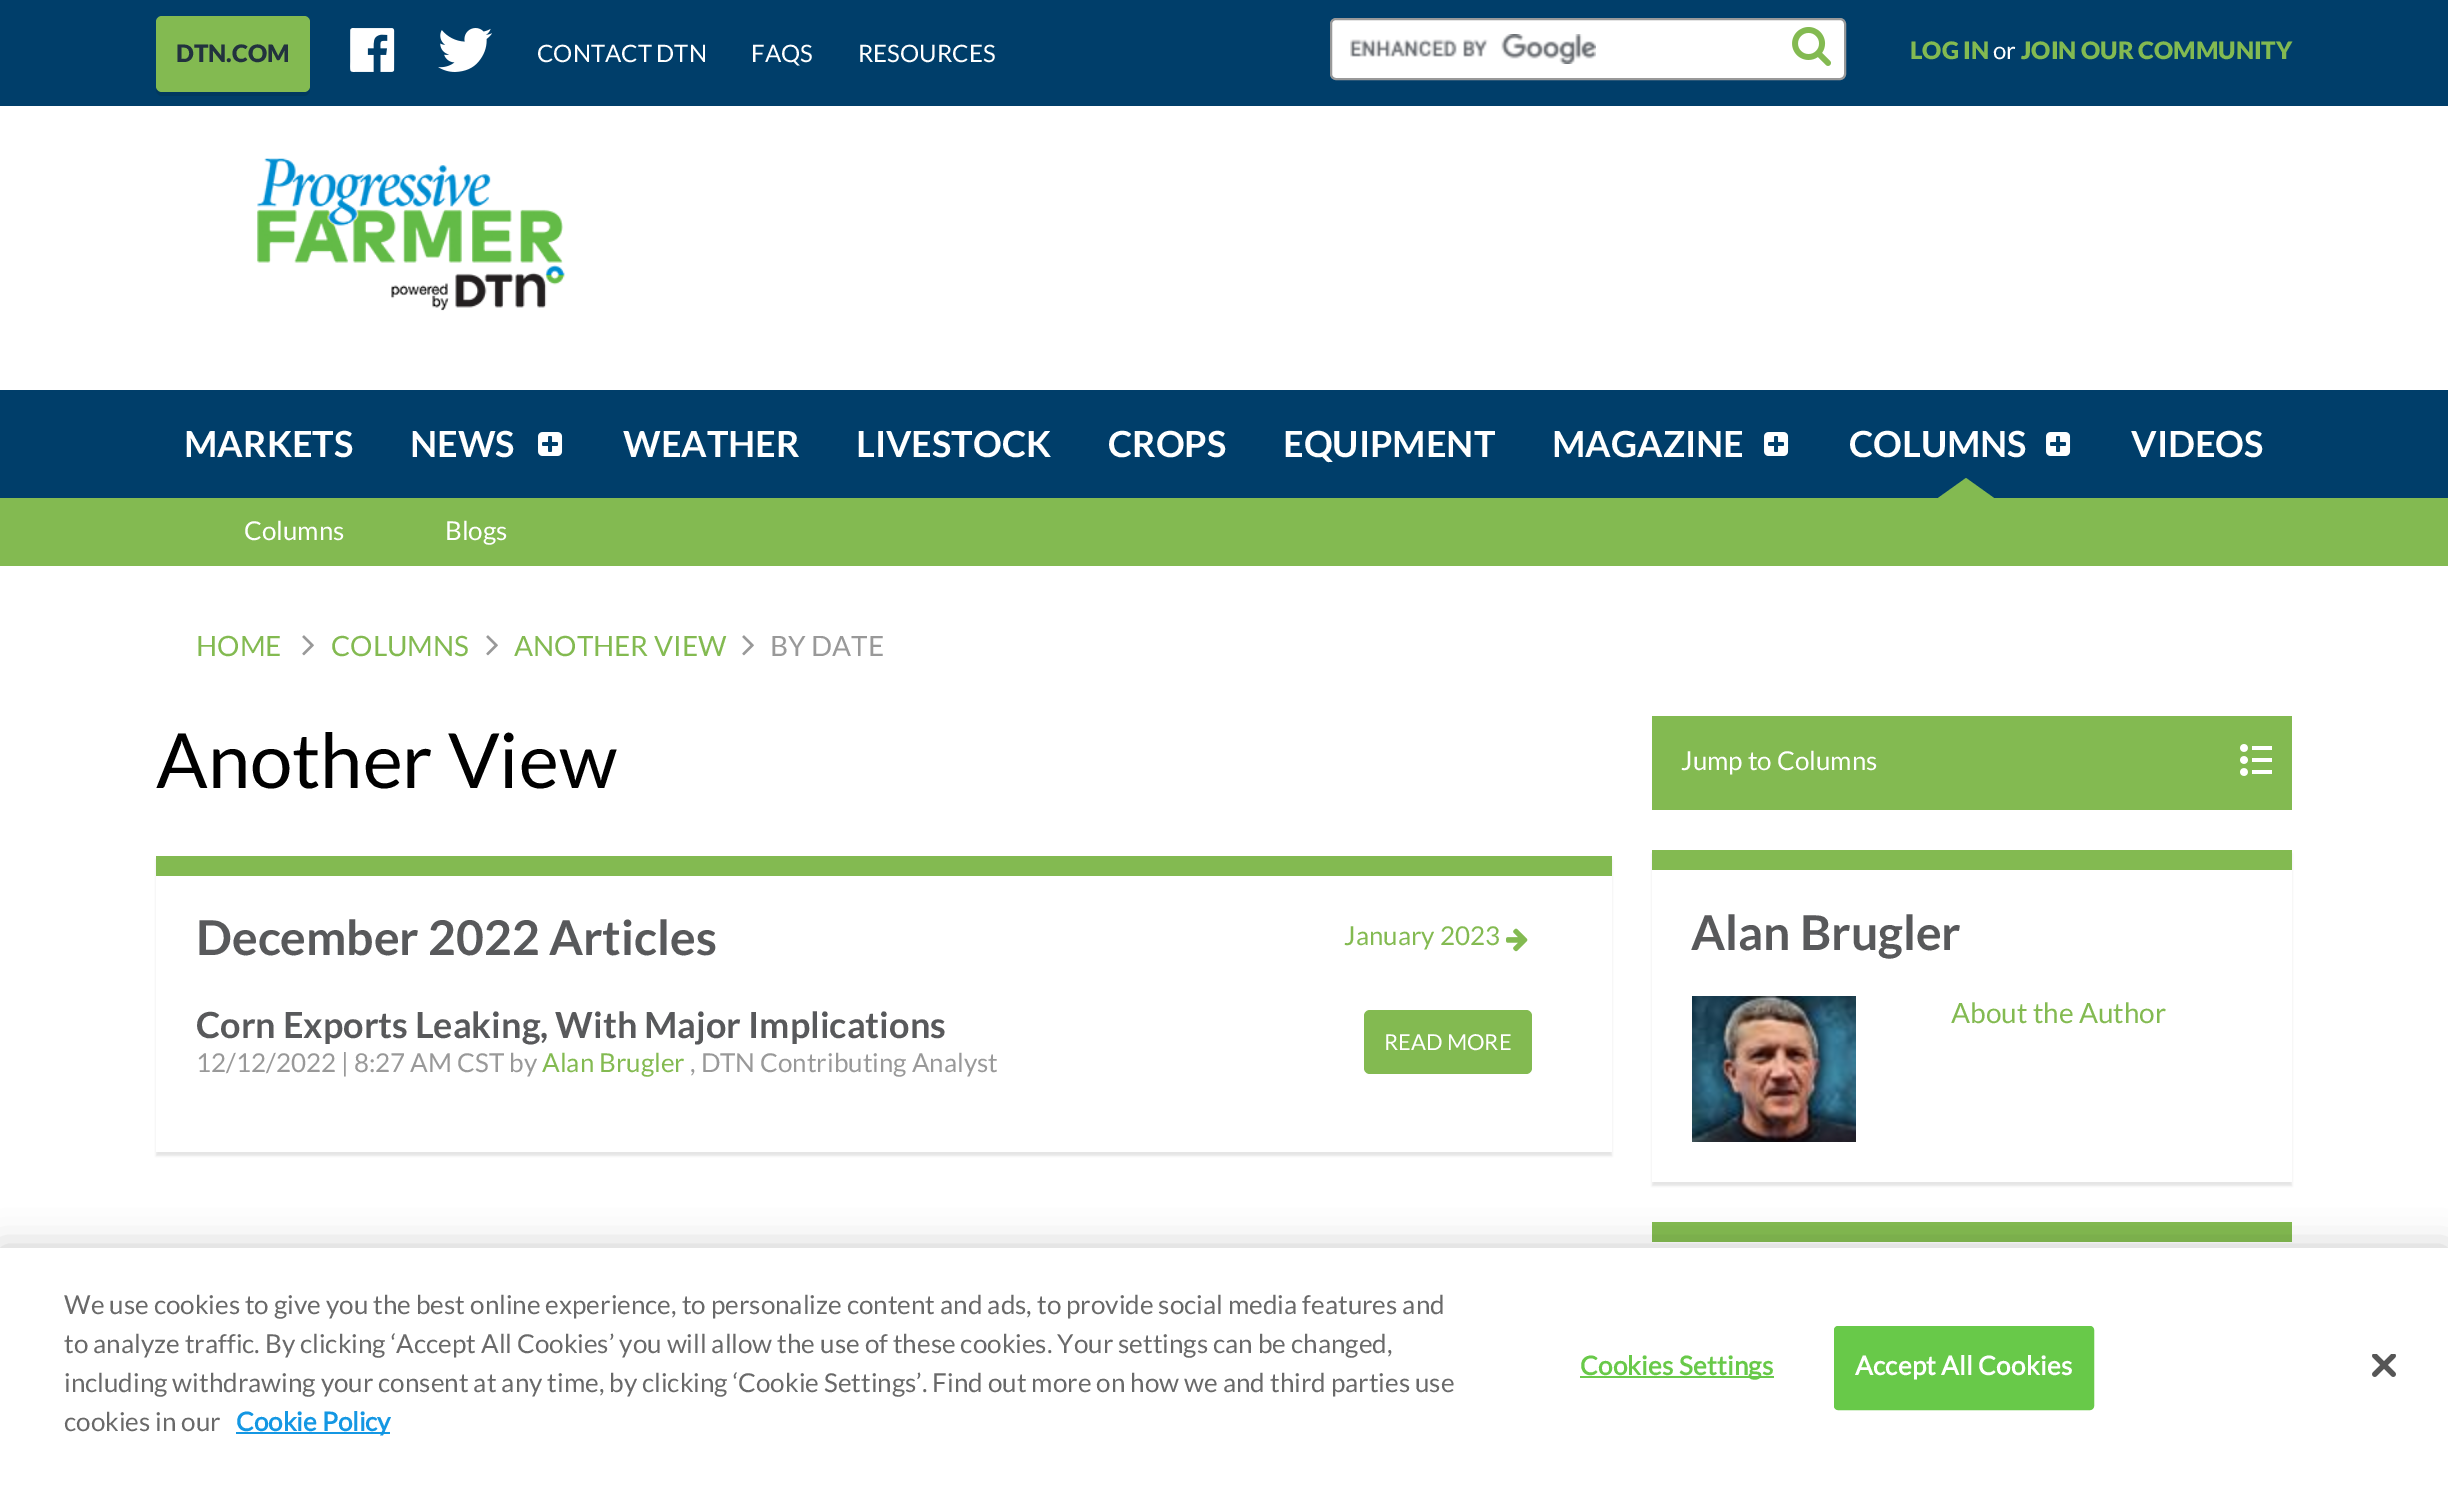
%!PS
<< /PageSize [2448 1490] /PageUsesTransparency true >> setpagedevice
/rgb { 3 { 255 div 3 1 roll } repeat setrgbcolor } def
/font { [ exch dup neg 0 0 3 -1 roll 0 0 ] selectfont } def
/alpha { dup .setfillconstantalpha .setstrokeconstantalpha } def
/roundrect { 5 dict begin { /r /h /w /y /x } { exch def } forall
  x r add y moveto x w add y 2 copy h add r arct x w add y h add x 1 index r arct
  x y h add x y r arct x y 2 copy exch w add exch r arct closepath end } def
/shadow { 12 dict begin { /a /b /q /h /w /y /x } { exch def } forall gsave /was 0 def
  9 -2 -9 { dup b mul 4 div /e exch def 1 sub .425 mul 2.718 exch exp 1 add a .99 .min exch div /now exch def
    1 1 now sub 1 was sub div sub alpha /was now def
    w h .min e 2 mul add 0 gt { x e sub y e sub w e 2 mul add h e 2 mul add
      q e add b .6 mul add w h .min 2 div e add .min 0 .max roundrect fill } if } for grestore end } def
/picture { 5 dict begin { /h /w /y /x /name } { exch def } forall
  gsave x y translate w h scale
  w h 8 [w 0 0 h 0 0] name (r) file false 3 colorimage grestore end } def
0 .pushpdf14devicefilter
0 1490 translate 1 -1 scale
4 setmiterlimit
255 255 255 rgb
0 0 2448 1490 rectfill
0 62 106 rgb
0 0 2448 106 rectfill
0 56 95 rgb
156 86 moveto 156 90 lineto 156 93 159 96 162 96 curveto 304 96 lineto 307 96 310 93 310 90 curveto 310 86 lineto 310 89 307 92 304 92 curveto 162 92 lineto 159 92 156 89 156 86 curveto closepath fill
131 186 81 rgb
156 16 154 76 6 roundrect fill
(img/1.rgb) 350 28 45 44 picture
(img/2.rgb) 438 28 54 44 picture
255 255 255 rgb
1331 19 514 60 5 roundrect gsave fill grestore
153 153 153 rgb
2 setlinewidth
stroke
(img/3.rgb) 1350 34 246 30 picture
(img/4.rgb) 1792 27 39 39 picture
(img/5.rgb) 257 158 308 153 picture
0 62 106 rgb
0 390 2448 108 rectfill
(img/6.rgb) 538 432 25 24 picture
(img/6.rgb) 1764 432 25 24 picture
131 186 81 rgb
1994 498 moveto 1938 498 lineto 1966 478 lineto closepath fill
(img/6.rgb) 2046 432 25 24 picture
0 498 2448 68 rectfill
(img/7.rgb) 302 635 12 21 picture
(img/7.rgb) 486 635 12 21 picture
(img/7.rgb) 742 635 12 21 picture
gsave
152 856 moveto 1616 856 lineto 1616 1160 lineto 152 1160 lineto closepath 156 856 moveto 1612 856 lineto 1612 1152 lineto 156 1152 lineto closepath eoclip newpath
0 0 0 rgb
156 860 1456 296 0 1 0.1 shadow
grestore
156 856 1456 20 rectfill
(img/8.rgb) 1506 928 22 24 picture
1364 1010 168 64 6 roundrect fill
1652 716 640 94 rectfill
(img/9.rgb) 2240 744 32 32 picture
gsave
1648 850 moveto 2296 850 lineto 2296 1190 lineto 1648 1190 lineto closepath 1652 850 moveto 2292 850 lineto 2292 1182 lineto 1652 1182 lineto closepath eoclip newpath
0 0 0 rgb
1652 854 640 332 0 1 0.1 shadow
grestore
1652 850 640 20 rectfill
(img/10.rgb) 1692 996 164 146 picture
1652 1222 640 20 rectfill
0 0 0 rgb
0 1248 2448 242 0 18 0.2 shadow
[
  [0 1248 2448 242 255 255 255]
  [236 1432 154 2 20 151 227]
  [1580 1376 194 2 104 201 73]
] { aload pop rgb rectfill } forall
1835 1327 258 82 3 roundrect gsave fill grestore
stroke
(img/11.rgb) 2372 1354 24 23 picture
/Lato-Black 24 font
34 50 62 rgb
176 62 moveto (DTN.COM) show
/Lato-Regular 24 font
255 255 255 rgb
[
  [(CONTACT DTN) 537 62]
  [(FAQS) 751 62]
  [(RESOURCES) 858 62]
] { aload pop moveto show } forall
/Lato-Black 24 font
131 186 81 rgb
1910 59 moveto (LOG IN) show
/Lato-Regular 24 font
255 255 255 rgb
1993 59 moveto (or) show
/Lato-Black 24 font
131 186 81 rgb
2021 59 moveto (JOIN OUR COMMUNITY) show
/Lato-Bold 36 font
255 255 255 rgb
[
  [(MARKETS) 184 457]
  [(NEWS) 410 457]
  [(WEATHER) 623 457]
  [(LIVESTOCK) 856 457]
  [(CROPS) 1108 457]
  [(EQUIPMENT) 1283 457]
  [(MAGAZINE) 1552 457]
  [(COLUMNS) 1849 457]
  [(VIDEOS) 2131 457]
] { aload pop moveto show } forall
/Lato-Regular 26 font
244 540 moveto (Columns) show
445 540 moveto (Blogs) show
/Lato-Regular 28 font
131 186 81 rgb
[
  [(HOME) 196 656]
  [(COLUMNS) 331 656]
  [(ANOTHER VIEW) 514 656]
] { aload pop moveto show } forall
153 153 153 rgb
770 656 moveto (BY DATE) show
/Lato-Regular 76 font
0 0 0 rgb
156 788 moveto (Another View) show
/Lato-Bold 48 font
88 89 91 rgb
196 955 moveto (December 2022 Articles) show
/Lato-Regular 26 font
131 186 81 rgb
1344 945 moveto (January 2023) show
/Lato-Bold 36 font
88 89 91 rgb
196 1038 moveto (Corn Exports Leaking, With Major Implications) show
/Lato-Regular 26 font
153 153 153 rgb
196 1072 moveto (12/12/2022 | 8:27 AM CST by) show
131 186 81 rgb
542 1072 moveto (Alan Brugler) show
153 153 153 rgb
690 1072 moveto (, DTN Contributing Analyst) show
/Lato-Regular 22 font
255 255 255 rgb
1384 1050 moveto (READ MORE) show
/Lato-Regular 26 font
1681 770 moveto (Jump to Columns) show
/Lato-Bold 48 font
88 89 91 rgb
1691 950 moveto (Alan Brugler) show
/Lato-Regular 28 font
131 186 81 rgb
1951 1023 moveto (About the Author) show
/Lato-Regular 26.02 font
105 105 105 rgb
[
  [(We use cookies to give you the best online experience, to personalize content and ads, to provide social media features and) 64 1314]
  [(to analyze traffic. By clicking ‘Accept All Cookies’ you will allow the use of these cookies. Your settings can be changed,) 64 1353]
  [(including withdrawing your consent at any time, by clicking ‘Cookie Settings’. Find out more on how we and third parties use) 64 1392]
  [(cookies in our) 64 1431]
] { aload pop moveto show } forall
/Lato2-Bold 26.02 font
20 151 227 rgb
236 1431 moveto (Cookie Policy) show
104 201 73 rgb
1580 1375 moveto 0.25 0 (Cookies Settings) ashow
255 255 255 rgb
1855 1375 moveto 0.25 0 (Accept All Cookies) ashow
.poppdf14devicefilter showpage
